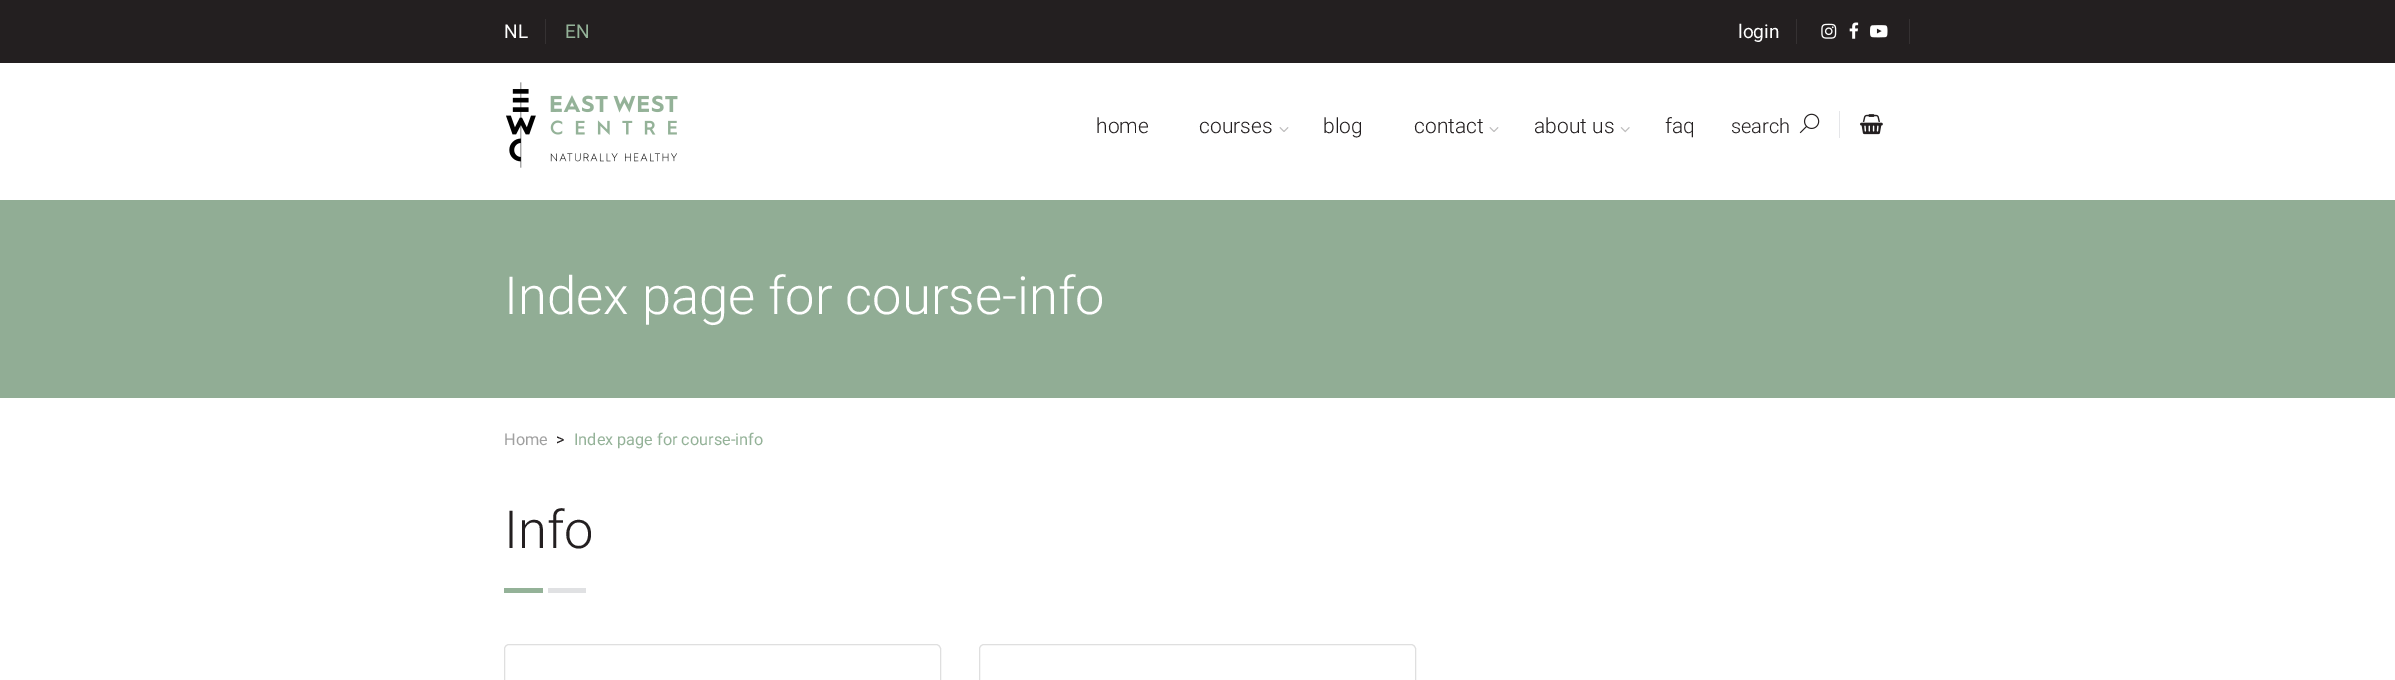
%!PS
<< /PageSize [2395 680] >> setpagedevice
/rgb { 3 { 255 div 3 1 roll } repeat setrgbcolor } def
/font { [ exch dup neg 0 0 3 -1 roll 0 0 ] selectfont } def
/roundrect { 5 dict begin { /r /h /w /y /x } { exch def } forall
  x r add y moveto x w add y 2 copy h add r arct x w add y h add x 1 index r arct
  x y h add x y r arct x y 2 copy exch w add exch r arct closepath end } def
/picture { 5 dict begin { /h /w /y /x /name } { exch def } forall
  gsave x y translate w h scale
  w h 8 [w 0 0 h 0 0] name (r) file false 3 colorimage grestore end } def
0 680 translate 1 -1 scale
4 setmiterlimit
255 255 255 rgb
0 0 2395 680 rectfill
[
  [0 0 2395 63 35 31 32]
  [545 19 1 25 53 49 50]
  [1796 19 1 25 53 49 50]
] { aload pop rgb rectfill } forall
(img/1.rgb) 1821 23 16 16 picture
(img/2.rgb) 1849 22 10 17 picture
(img/3.rgb) 1870 25 18 13 picture
1909 19 1 25 rectfill
(img/4.rgb) 506 82 172 86 picture
(img/5.rgb) 1279 127 10 5 picture
(img/5.rgb) 1489 127 10 5 picture
(img/6.rgb) 1620 127 10 6 picture
(img/7.rgb) 1799 113 21 21 picture
229 230 233 rgb
1839 111 1 27 rectfill
(img/8.rgb) 1860 114 23 21 picture
[
  [0 200 2395 198 145 173 149]
  [504 588 39 5 148 178 152]
  [548 588 38 5 224 225 227]
] { aload pop rgb rectfill } forall
223 223 223 rgb
504.5 644.5 436 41 4.5 roundrect stroke
979.5 644.5 436 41 4.5 roundrect stroke
/Roboto-Regular 19 font
255 255 255 rgb
504 38 moveto (NL) show
148 178 152 rgb
565 38 moveto (EN) show
255 255 255 rgb
1738 38 moveto (login) show
/Roboto-Light 21 font
35 31 32 rgb
[
  [(home) 1096 133]
  [(courses) 1199 133]
  [(blog) 1323 133]
  [(contact) 1414 133]
  [(about us) 1534 133]
  [(faq) 1665 133]
] { aload pop moveto show } forall
/Roboto-Light 20 font
1731 133 moveto (search) show
/Roboto-Light 52.5 font
255 255 255 rgb
504 314 moveto (Index page for course-info) show
/Roboto-Regular 16.25 font
160 160 160 rgb
504 445 moveto (Home) show
35 31 32 rgb
556 445 moveto (>) show
148 178 152 rgb
574 445 moveto (Index page for course-info) show
/Roboto-Light 52.5 font
35 31 32 rgb
504 548 moveto (Info) show
showpage
